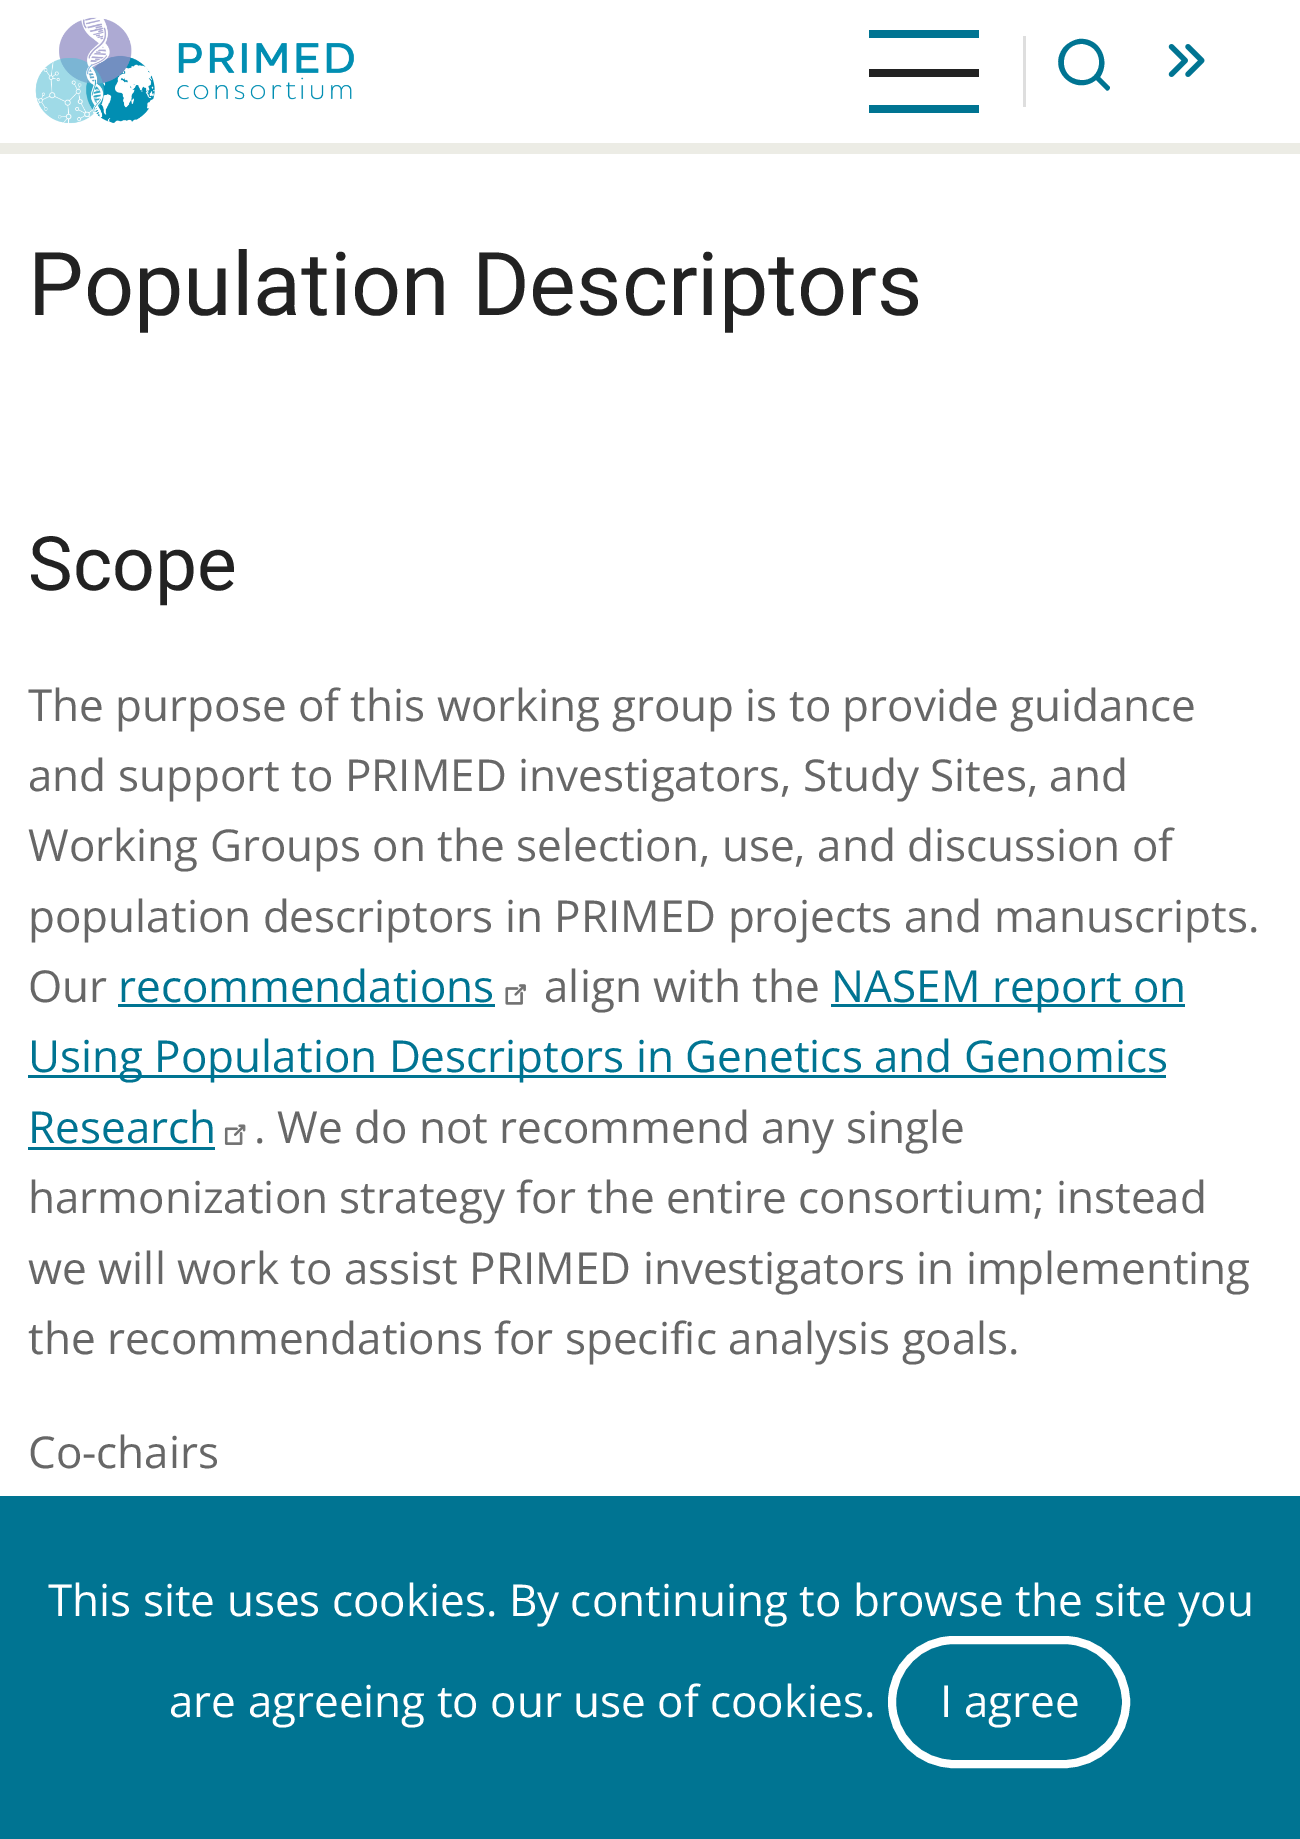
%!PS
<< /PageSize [1300 1839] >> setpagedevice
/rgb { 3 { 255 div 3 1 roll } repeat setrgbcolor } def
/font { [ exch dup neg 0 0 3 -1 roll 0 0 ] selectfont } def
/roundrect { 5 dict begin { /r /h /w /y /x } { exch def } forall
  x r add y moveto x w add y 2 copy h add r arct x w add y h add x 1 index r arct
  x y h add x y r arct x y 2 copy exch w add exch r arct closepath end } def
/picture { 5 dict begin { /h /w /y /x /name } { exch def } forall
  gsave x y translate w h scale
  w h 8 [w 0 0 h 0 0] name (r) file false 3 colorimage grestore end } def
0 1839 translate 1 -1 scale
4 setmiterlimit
255 255 255 rgb
0 0 1300 1839 rectfill
(img/1.rgb) 35 17 319 107 picture
[
  [869 30 110 8 0 116 146]
  [869 69 110 8 34 34 34]
  [869 105 110 8 0 116 146]
  [1023 36 3 71 222 222 222]
] { aload pop rgb rectfill } forall
0 116 146 rgb
1079 39 moveto 1073 40 1068 43 1064 47 curveto 1046 69 1074 97 1096 80 curveto 1106 90 lineto 1108 92 1110 89 1110 87 curveto 1100 77 lineto 1111 61 1100 37 1079 39 curveto closepath 1083 44 moveto 1107 47 1103 83 1080 80 curveto 1056 78 1060 42 1083 44 curveto closepath fill
(img/2.rgb) 1168 44 37 33 picture
236 236 229 rgb
0 143 1300 11 rectfill
0 116 146 rgb
118 1004 377 3 rectfill
(img/3.rgb) 505 984 21 21 picture
[
  [831 1004 354 3 0 116 146]
  [28 1075 1138 3 0 116 146]
  [28 1147 187 3 0 116 146]
] { aload pop rgb rectfill } forall
(img/4.rgb) 224 1124 22 21 picture
0 1496 1300 343 rectfill
255 255 255 rgb
8 setlinewidth
892 1640 234 124 62 roundrect stroke
/Roboto-Regular 88 font
34 34 34 rgb
28 315 moveto (Population Descriptors) show
/Roboto-Regular 75 font
28 590 moveto (Scope) show
/OpenSans-Regular 44 font
103 103 103 rgb
[
  [(The purpose of this working group is to provide guidance) 28 721]
  [(and support to PRIMED investigators, Study Sites, and) 28 791]
  [(Working Groups on the selection, use, and discussion of) 28 861]
  [(population descriptors in PRIMED projects and manuscripts.) 28 932]
  [(Our) 28 1002]
] { aload pop moveto show } forall
0 116 146 rgb
118 1002 moveto (recommendations) show
103 103 103 rgb
544 1002 moveto (align with the) show
0 116 146 rgb
[
  [(NASEM report on) 831 1002]
  [(Using Population Descriptors in Genetics and Genomics) 28 1072]
  [(Research) 28 1143]
] { aload pop moveto show } forall
103 103 103 rgb
[
  [(. We do not recommend any single) 254 1143]
  [(harmonization strategy for the entire consortium; instead) 28 1213]
  [(we will work to assist PRIMED investigators in implementing) 28 1284]
  [(the recommendations for specific analysis goals.) 28 1354]
  [(Co-chairs) 28 1468]
] { aload pop moveto show } forall
255 255 255 rgb
[
  [(This site uses cookies. By continuing to browse the site you) 48 1616]
  [(are agreeing to our use of cookies.) 169 1717]
  [(I agree) 940 1717]
] { aload pop moveto show } forall
showpage
